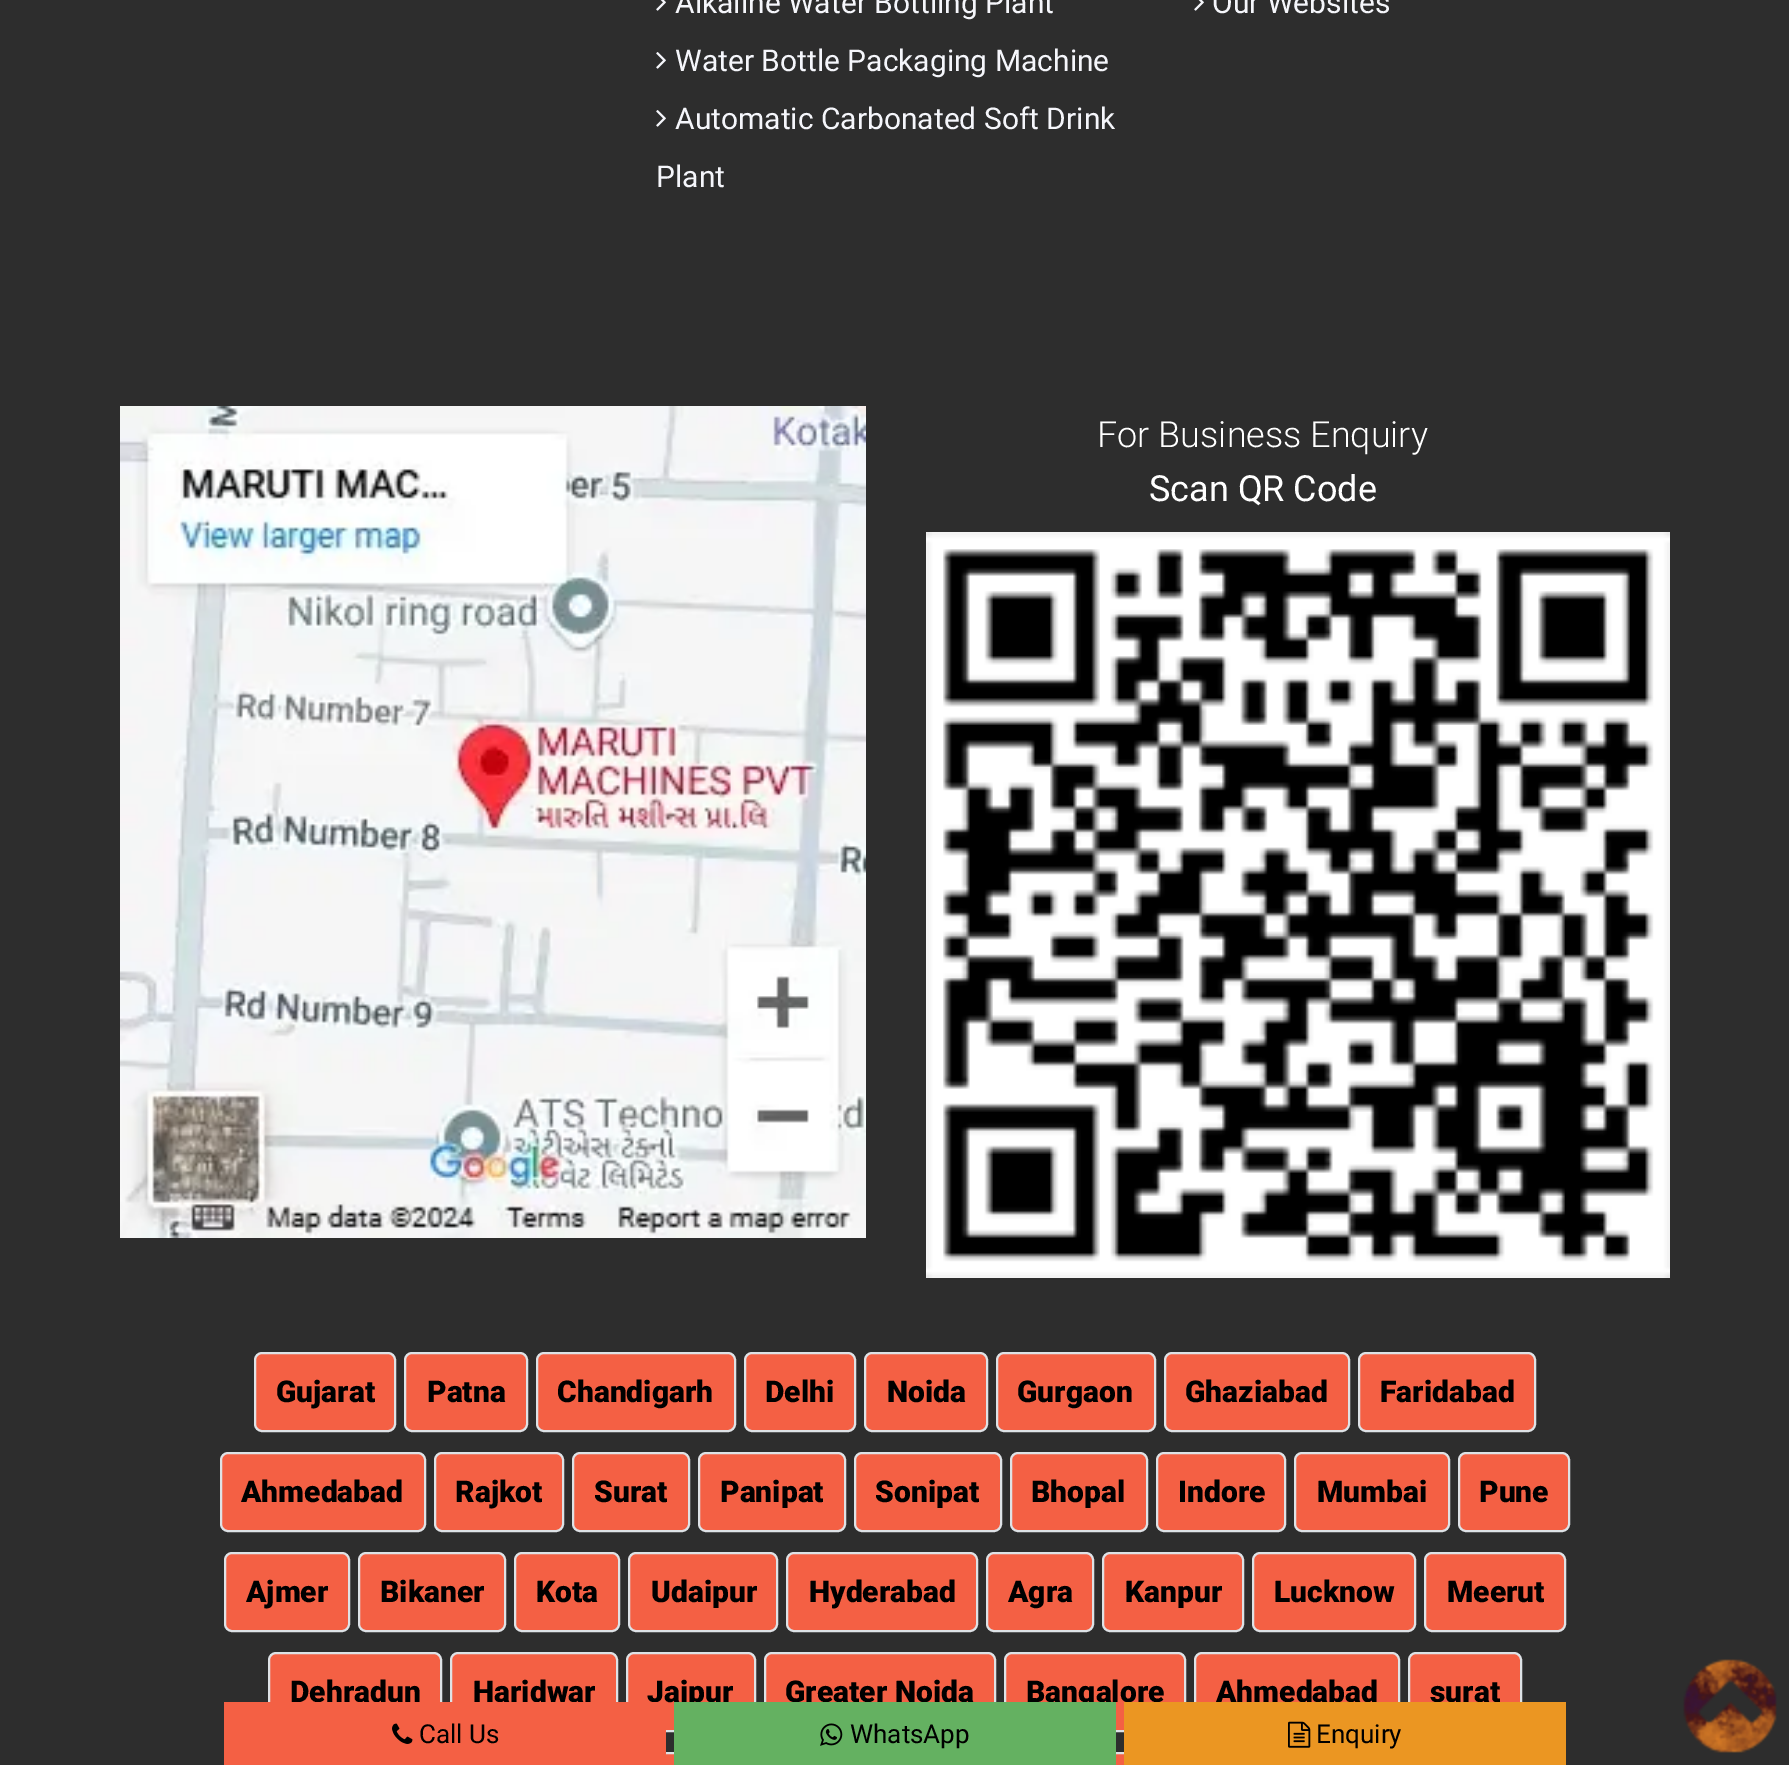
%!PS
<< /PageSize [1789 1765] >> setpagedevice
/rgb { 3 { 255 div 3 1 roll } repeat setrgbcolor } def
/font { [ exch dup neg 0 0 3 -1 roll 0 0 ] selectfont } def
/roundrect { 5 dict begin { /r /h /w /y /x } { exch def } forall
  x r add y moveto x w add y 2 copy h add r arct x w add y h add x 1 index r arct
  x y h add x y r arct x y 2 copy exch w add exch r arct closepath end } def
/picture { 5 dict begin { /h /w /y /x /name } { exch def } forall
  gsave x y translate w h scale
  w h 8 [w 0 0 h 0 0] name (r) file false 3 colorimage grestore end } def
0 1765 translate 1 -1 scale
4 setmiterlimit
45 45 45 rgb
0 0 1789 1765 rectfill
(img/1.rgb) 656 0 10 11 picture
(img/2.rgb) 656 52 10 17 picture
(img/2.rgb) 656 110 10 17 picture
(img/1.rgb) 1194 0 10 11 picture
(img/3.rgb) 120 406 746 832 picture
(img/4.rgb) 926 532 744 746 picture
244 96 68 rgb
255 1353 140 78 7 roundrect gsave fill grestore
222 226 230 rgb
2 setlinewidth
stroke
244 96 68 rgb
405 1353 122 78 7 roundrect gsave fill grestore
222 226 230 rgb
stroke
244 96 68 rgb
537 1353 198 78 7 roundrect gsave fill grestore
222 226 230 rgb
stroke
244 96 68 rgb
745 1353 110 78 7 roundrect gsave fill grestore
222 226 230 rgb
stroke
244 96 68 rgb
865 1353 122 78 7 roundrect gsave fill grestore
222 226 230 rgb
stroke
244 96 68 rgb
997 1353 158 78 7 roundrect gsave fill grestore
222 226 230 rgb
stroke
244 96 68 rgb
1165 1353 184 78 7 roundrect gsave fill grestore
222 226 230 rgb
stroke
244 96 68 rgb
1359 1353 176 78 7 roundrect gsave fill grestore
222 226 230 rgb
stroke
244 96 68 rgb
221 1453 204 78 7 roundrect gsave fill grestore
222 226 230 rgb
stroke
244 96 68 rgb
435 1453 128 78 7 roundrect gsave fill grestore
222 226 230 rgb
stroke
244 96 68 rgb
573 1453 116 78 7 roundrect gsave fill grestore
222 226 230 rgb
stroke
244 96 68 rgb
699 1453 146 78 7 roundrect gsave fill grestore
222 226 230 rgb
stroke
244 96 68 rgb
855 1453 146 78 7 roundrect gsave fill grestore
222 226 230 rgb
stroke
244 96 68 rgb
1011 1453 136 78 7 roundrect gsave fill grestore
222 226 230 rgb
stroke
244 96 68 rgb
1157 1453 128 78 7 roundrect gsave fill grestore
222 226 230 rgb
stroke
244 96 68 rgb
1295 1453 154 78 7 roundrect gsave fill grestore
222 226 230 rgb
stroke
244 96 68 rgb
1459 1453 110 78 7 roundrect gsave fill grestore
222 226 230 rgb
stroke
244 96 68 rgb
225 1553 124 78 7 roundrect gsave fill grestore
222 226 230 rgb
stroke
244 96 68 rgb
359 1553 146 78 7 roundrect gsave fill grestore
222 226 230 rgb
stroke
244 96 68 rgb
515 1553 104 78 7 roundrect gsave fill grestore
222 226 230 rgb
stroke
244 96 68 rgb
629 1553 148 78 7 roundrect gsave fill grestore
222 226 230 rgb
stroke
244 96 68 rgb
787 1553 190 78 7 roundrect gsave fill grestore
222 226 230 rgb
stroke
244 96 68 rgb
987 1553 106 78 7 roundrect gsave fill grestore
222 226 230 rgb
stroke
244 96 68 rgb
1103 1553 140 78 7 roundrect gsave fill grestore
222 226 230 rgb
stroke
244 96 68 rgb
1253 1553 162 78 7 roundrect gsave fill grestore
222 226 230 rgb
stroke
244 96 68 rgb
1425 1553 140 78 7 roundrect gsave fill grestore
222 226 230 rgb
stroke
244 96 68 rgb
269 1653 172 78 7 roundrect gsave fill grestore
222 226 230 rgb
stroke
244 96 68 rgb
451 1653 166 78 7 roundrect gsave fill grestore
222 226 230 rgb
stroke
244 96 68 rgb
627 1653 128 78 7 roundrect gsave fill grestore
222 226 230 rgb
stroke
244 96 68 rgb
765 1653 230 78 7 roundrect gsave fill grestore
222 226 230 rgb
stroke
244 96 68 rgb
1005 1653 180 78 7 roundrect gsave fill grestore
222 226 230 rgb
stroke
244 96 68 rgb
1195 1653 204 78 7 roundrect gsave fill grestore
222 226 230 rgb
stroke
244 96 68 rgb
1409 1653 112 78 7 roundrect gsave fill grestore
222 226 230 rgb
stroke
244 96 68 rgb
666 1754 8 11 rectfill
222 226 230 rgb
507 1753 216 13 rectstroke
244 96 68 rgb
1116 1754 8 11 rectfill
222 226 230 rgb
1109 1753 178 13 rectstroke
(img/5.rgb) 1683 1659 94 94 picture
/Roboto-Regular 30 font
245 246 251 rgb
[
  [(Alkaline Water Bottling Plant) 675 13]
  [(Water Bottle Packaging Machine) 675 71]
  [(Automatic Carbonated Soft Drink) 675 129]
  [(Plant) 656 187]
  [(Our Websites) 1212 13]
] { aload pop moveto show } forall
/Roboto-Light 36 font
255 255 255 rgb
1097 447 moveto (For Business Enquiry) show
/Roboto-Regular 36 font
1149 501 moveto (Scan QR Code) show
/Roboto-Black 30 font
0 0 0 rgb
[
  [(Gujarat) 276 1402]
  [(Patna) 427 1402]
  [(Chandigarh) 557 1402]
  [(Delhi) 765 1402]
  [(Noida) 887 1402]
  [(Gurgaon) 1017 1402]
  [(Ghaziabad) 1185 1402]
  [(Faridabad) 1380 1402]
  [(Ahmedabad) 241 1502]
  [(Rajkot) 455 1502]
  [(Surat) 594 1502]
  [(Panipat) 720 1502]
  [(Sonipat) 875 1502]
  [(Bhopal) 1031 1502]
  [(Indore) 1178 1502]
  [(Mumbai) 1317 1502]
  [(Pune) 1479 1502]
  [(Ajmer) 246 1602]
  [(Bikaner) 380 1602]
  [(Kota) 536 1602]
  [(Udaipur) 651 1602]
  [(Hyderabad) 809 1602]
  [(Agra) 1008 1602]
  [(Kanpur) 1125 1602]
  [(Lucknow) 1274 1602]
  [(Meerut) 1447 1602]
  [(Dehradun) 290 1702]
  [(Haridwar) 473 1702]
  [(Jaipur) 647 1702]
  [(Greater Noida) 785 1702]
  [(Bangalore) 1026 1702]
  [(Ahmedabad) 1216 1702]
  [(surat) 1430 1702]
] { aload pop moveto show } forall
244 96 68 rgb
224 1702 442 63 rectfill
(img/6.rgb) 392 1723 21 21 picture
/Roboto-Regular 26 font
0 0 0 rgb
419 1743 moveto (Call Us) show
100 177 97 rgb
674 1702 442 63 rectfill
(img/7.rgb) 820 1723 23 23 picture
0 0 0 rgb
850 1743 moveto (WhatsApp) show
235 150 34 rgb
1124 1702 442 63 rectfill
(img/8.rgb) 1288 1721 23 27 picture
0 0 0 rgb
1316 1743 moveto (Enquiry) show
showpage
